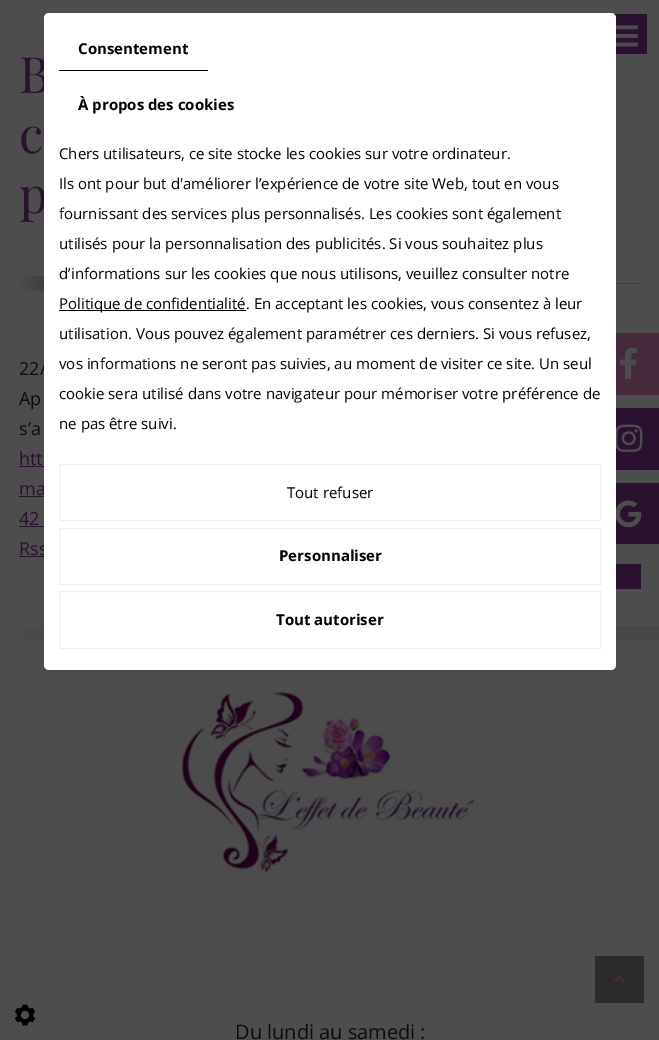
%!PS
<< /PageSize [659 1040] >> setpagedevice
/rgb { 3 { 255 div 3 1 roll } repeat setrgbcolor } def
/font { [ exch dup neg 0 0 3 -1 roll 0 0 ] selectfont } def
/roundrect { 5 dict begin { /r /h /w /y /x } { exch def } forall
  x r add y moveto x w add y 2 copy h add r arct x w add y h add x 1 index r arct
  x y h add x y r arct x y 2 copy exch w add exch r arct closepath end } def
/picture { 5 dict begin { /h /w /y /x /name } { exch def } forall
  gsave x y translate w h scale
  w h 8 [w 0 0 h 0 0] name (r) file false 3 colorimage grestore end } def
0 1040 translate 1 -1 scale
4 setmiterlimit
77 77 77 rgb
0 0 659 1040 rectfill
43 17 48 rgb
614 14 33 40 rectfill
(img/1.rgb) 616 25 22 22 picture
gsave 22 276 moveto 44 276 lineto 44 291 lineto 22 291 lineto closepath clip newpath
<< /ShadingType 2 /ColorSpace /DeviceRGB /Coords [19 284 100 284] /Extend [true true] /Function << /FunctionType 3 /Domain [0 1] /Functions [<< /FunctionType 2 /Domain [0 1] /C0 [0.298 0.302 0.302] /C1 [0.216 0.22 0.224] /N 1 >> << /FunctionType 2 /Domain [0 1] /C0 [0.216 0.22 0.224] /C1 [0.278 0.282 0.282] /N 1 >> << /FunctionType 2 /Domain [0 1] /C0 [0.278 0.282 0.282] /C1 [0.278 0.282 0.282] /N 1 >>] /Bounds [0.5 0.93] /Encode [0 1 0 1 0 1] >> >> shfill grestore
[
  [616 283 25 1 64 64 64]
  [19 466 25 1 43 17 48]
  [19 496 25 1 43 17 48]
  [19 526 25 1 43 17 48]
  [19 556 25 1 43 17 48]
  [616 564 25 25 43 17 48]
  [616 333 43 62 70 41 59]
] { aload pop rgb rectfill } forall
(img/2.rgb) 620 347 17 32 picture
43 17 48 rgb
616 408 43 62 rectfill
(img/3.rgb) 616 424 27 28 picture
616 483 43 61 rectfill
(img/4.rgb) 616 500 26 28 picture
gsave 24 626 moveto 659 626 lineto 659 641 lineto 24 641 lineto closepath clip newpath
<< /ShadingType 2 /ColorSpace /DeviceRGB /Coords [0 634 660 634] /Extend [true true] /Function << /FunctionType 3 /Domain [0 1] /Functions [<< /FunctionType 2 /Domain [0 1] /C0 [0.298 0.302 0.302] /C1 [0.216 0.22 0.224] /N 1 >> << /FunctionType 2 /Domain [0 1] /C0 [0.216 0.22 0.224] /C1 [0.278 0.282 0.282] /N 1 >> << /FunctionType 2 /Domain [0 1] /C0 [0.278 0.282 0.282] /C1 [0.278 0.282 0.282] /N 1 >>] /Bounds [0.5 0.93] /Encode [0 1 0 1 0 1] >> >> shfill grestore
43 43 43 rgb
595 956 49 47 rectfill
(img/5.rgb) 613 975 12 7 picture
(img/6.rgb) 14 1004 22 22 picture
(img/7.rgb) 182 691 296 183 picture
/PlayfairDisplay-Regular 50 font
43 17 48 rgb
[
  [(B) 19 93]
  [(c) 19 153]
  [(p) 19 213]
] { aload pop moveto show } forall
/OpenSans-Regular 18 font
12 12 12 rgb
[
  [(22/) 19 375]
  [(Ap) 19 405]
  [(s’a) 19 435]
] { aload pop moveto show } forall
43 17 48 rgb
[
  [(htt) 19 465]
  [(ma) 19 495]
  [(42) 19 525]
  [(Rss) 19 555]
] { aload pop moveto show } forall
255 255 255 rgb
44 13 572 657 5 roundrect fill
0 0 0 rgb
59 70 149 1 rectfill
/OpenSans-Bold 15 font
78 54 moveto (Consentement) show
78 110 moveto (À propos des cookies) show
/OpenSans-Regular 15 font
[
  [(Chers utilisateurs, ce site stocke les cookies sur votre ordinateur.) 59 159]
  [(Ils ont pour but d'améliorer l’expérience de votre site Web, tout en vous) 59 189]
  [(fournissant des services plus personnalisés. Les cookies sont également) 59 219]
  [(utilisés pour la personnalisation des publicités. Si vous souhaitez plus) 59 249]
  [(d’informations sur les cookies que nous utilisons, veuillez consulter notre) 59 279]
] { aload pop moveto show } forall
59 310 187 1 rectfill
[
  [(Politique de confidentialité. En acceptant les cookies, vous consentez à leur) 59 309]
  [(utilisation. Vous pouvez également paramétrer ces derniers. Si vous refusez,) 59 339]
  [(vos informations ne seront pas suivies, au moment de visiter ce site. Un seul) 59 369]
  [(cookie sera utilisé dans votre navigateur pour mémoriser votre préférence de) 59 399]
  [(ne pas être suivi.) 59 429]
] { aload pop moveto show } forall
240 240 240 rgb
59.5 464.5 541 56 rectstroke
0 0 0 rgb
287 498 moveto (Tout refuser) show
240 240 240 rgb
59.5 528.5 541 56 rectstroke
/OpenSans-Bold 15 font
0 0 0 rgb
279 561 moveto (Personnaliser) show
240 240 240 rgb
59.5 591.5 541 57 rectstroke
0 0 0 rgb
276 625 moveto (Tout autoriser) show
/OpenSans-Regular 20 font
12 12 12 rgb
235 1039 moveto (Du lundi au samedi :) show
showpage
